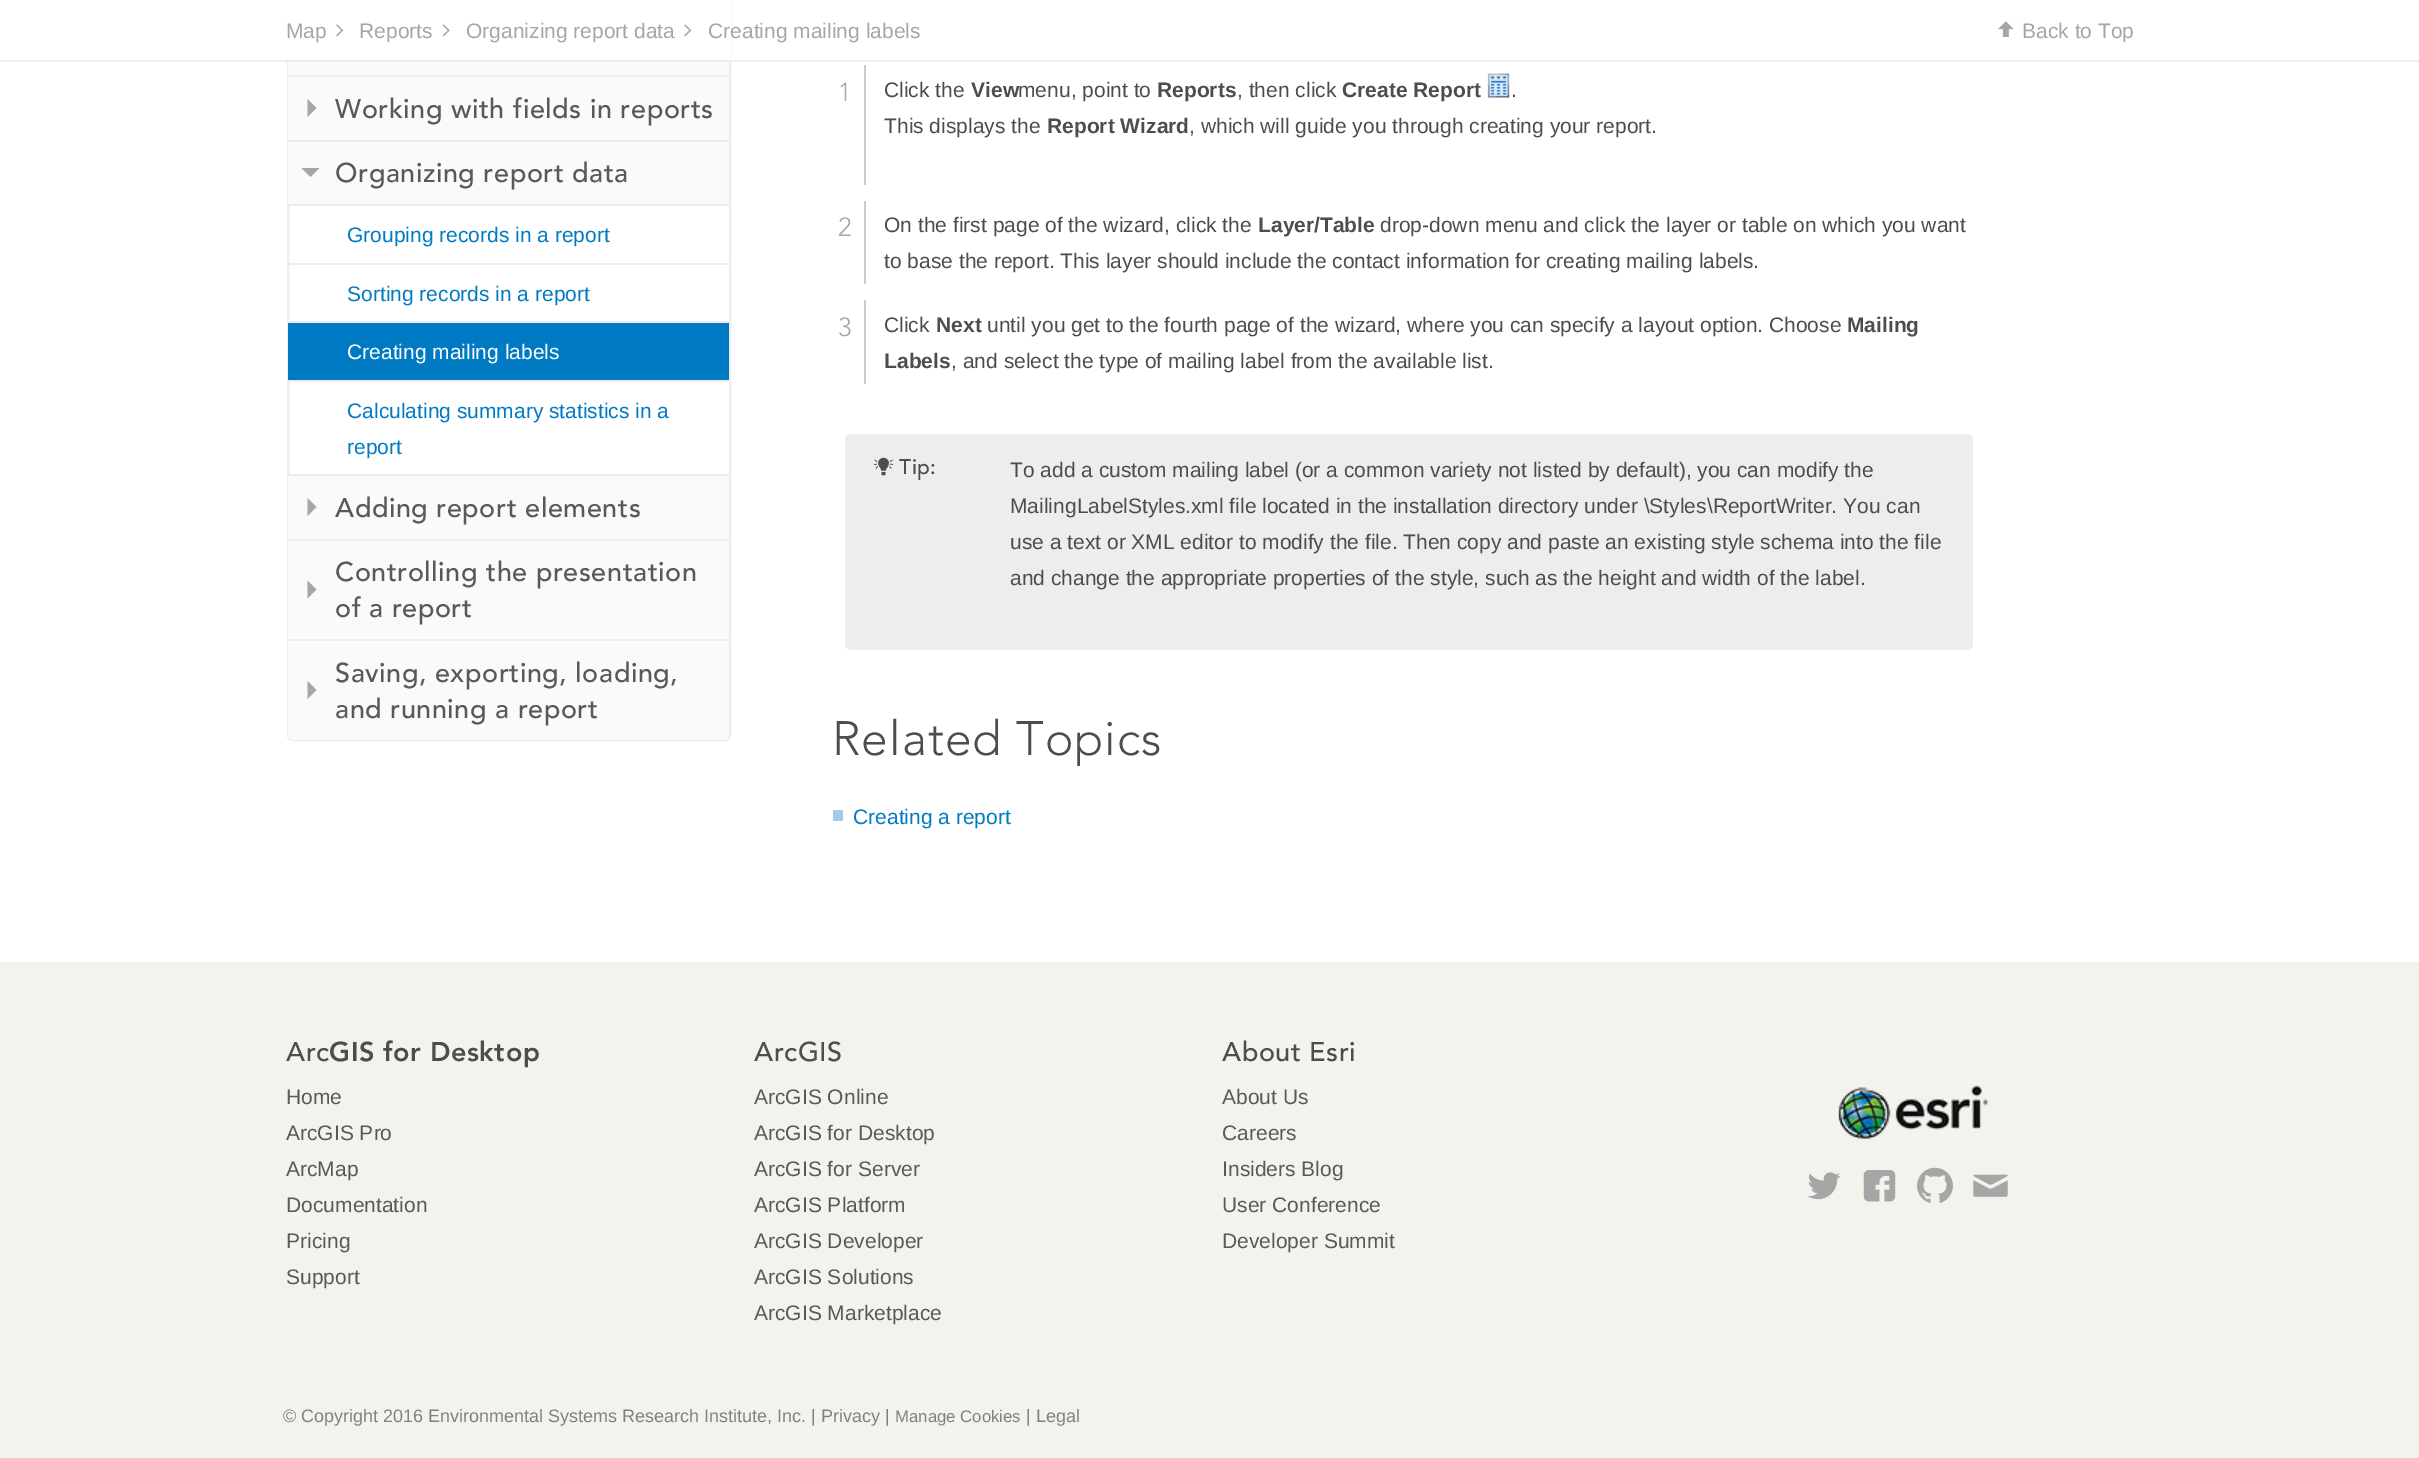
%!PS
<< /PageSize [2419 1458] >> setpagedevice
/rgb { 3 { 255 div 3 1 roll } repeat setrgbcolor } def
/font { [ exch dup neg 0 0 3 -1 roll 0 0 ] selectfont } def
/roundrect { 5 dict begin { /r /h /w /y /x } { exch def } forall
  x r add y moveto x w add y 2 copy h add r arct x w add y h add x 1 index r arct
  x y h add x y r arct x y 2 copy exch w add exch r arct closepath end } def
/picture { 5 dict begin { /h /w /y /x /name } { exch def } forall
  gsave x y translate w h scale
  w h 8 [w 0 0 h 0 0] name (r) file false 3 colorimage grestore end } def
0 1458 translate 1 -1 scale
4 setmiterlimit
255 255 255 rgb
0 0 2419 1458 rectfill
237 237 237 rgb
2 setlinewidth
288 -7 442 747 5 roundrect stroke
255 255 255 rgb
287 0 444 60 rectfill
237 237 237 rgb
0 60 2419 2 rectfill
(img/1.rgb) 336 24 8 13 picture
(img/2.rgb) 442 24 8 13 picture
(img/1.rgb) 684 24 8 13 picture
(img/3.rgb) 1998 21 16 16 picture
[
  [288 62 441 13 250 250 250]
  [288 75 441 2 237 237 237]
  [288 77 441 63 250 250 250]
  [288 140 441 2 237 237 237]
] { aload pop rgb rectfill } forall
166 166 166 rgb
307.5 117 moveto 307.5 99 lineto 316.5 108 lineto closepath fill
250 250 250 rgb
288 142 441 62 rectfill
237 237 237 rgb
288 204 441 2 rectfill
166 166 166 rgb
301.5 168 moveto 319.5 168 lineto 310.5 177 lineto closepath fill
[
  [288 263 441 2 237 237 237]
  [288 321 441 2 237 237 237]
  [288 323 441 57 0 122 194]
  [288 380 441 2 237 237 237]
  [288 474 441 2 237 237 237]
  [288 476 441 63 250 250 250]
  [288 539 441 2 237 237 237]
] { aload pop rgb rectfill } forall
166 166 166 rgb
307.5 516 moveto 307.5 498 lineto 316.5 507 lineto closepath fill
250 250 250 rgb
288 541 441 98 rectfill
237 237 237 rgb
288 639 441 2 rectfill
166 166 166 rgb
307.5 598.5 moveto 307.5 580.5 lineto 316.5 589.5 lineto closepath fill
250 250 250 rgb
288 641 moveto 729 641 lineto 729 735 lineto 729 738 727 740 724 740 curveto 293 740 lineto 290 740 288 738 288 735 curveto closepath fill
166 166 166 rgb
307.5 699 moveto 307.5 681 lineto 316.5 690 lineto closepath fill
204 204 204 rgb
864 65 2 120 rectfill
(img/4.rgb) 1487 73 23 25 picture
864 201 2 83 rectfill
864 300 2 84 rectfill
237 237 237 rgb
845 434 1128 216 6 roundrect fill
(img/5.rgb) 874 457 20 19 picture
168 201 227 rgb
833 810 10 11 rectfill
243 243 238 rgb
0 962 2419 496 rectfill
(img/6.rgb) 1837 1082 151 60 picture
(img/7.rgb) 1808 1172 33 28 picture
(img/8.rgb) 1863 1170 33 32 picture
(img/9.rgb) 1917 1167 36 36 picture
(img/10.rgb) 1973 1174 35 23 picture
/LiberationSans-Regular 21 font
166 166 166 rgb
[
  [(Map) 286 38]
  [(Reports) 359 38]
  [(Organizing report data) 466 38]
  [(Creating mailing labels) 708 38]
  [(Back to Top) 2022 38]
] { aload pop moveto show } forall
/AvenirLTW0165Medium-Medium 27 font
89 89 89 rgb
335 118 moveto 0.55 0 (Working with fields in reports) ashow
335 182 moveto 0.55 0 (Organizing report data) ashow
/LiberationSans-Regular 21 font
0 122 194 rgb
347 242 moveto (Grouping records in a report) show
347 301 moveto (Sorting records in a report) show
255 255 255 rgb
347 359 moveto (Creating mailing labels) show
0 122 194 rgb
347 418 moveto (Calculating summary statistics in a) show
347 454 moveto (report) show
/AvenirLTW0165Medium-Medium 27 font
89 89 89 rgb
335 517 moveto 0.55 0 (Adding report elements) ashow
335 581 moveto 0.55 0 (Controlling the presentation) ashow
335 617 moveto 0.55 0 (of a report) ashow
335 682 moveto 0.55 0 (Saving, exporting, loading,) ashow
335 718 moveto 0.55 0 (and running a report) ashow
/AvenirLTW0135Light-Light 26 font
166 166 166 rgb
838 101 moveto (1) show
/LiberationSans-Regular 21 font
77 77 77 rgb
884 97 moveto (Click the) show
/LiberationSans-Bold 21 font
971 97 moveto (View) show
/LiberationSans-Regular 21 font
1018 97 moveto (menu, point to) show
/LiberationSans-Bold 21 font
1157 97 moveto (Reports) show
/LiberationSans-Regular 21 font
1237 97 moveto (, then click) show
/LiberationSans-Bold 21 font
1342 97 moveto (Create Report) show
/LiberationSans-Regular 21 font
1511 97 moveto (.) show
884 133 moveto (This displays the) show
/LiberationSans-Bold 21 font
1047 133 moveto (Report Wizard) show
/LiberationSans-Regular 21 font
1189 133 moveto (, which will guide you through creating your report.) show
/AvenirLTW0135Light-Light 26 font
166 166 166 rgb
838 236 moveto (2) show
/LiberationSans-Regular 21 font
77 77 77 rgb
884 232 moveto (On the first page of the wizard, click the) show
/LiberationSans-Bold 21 font
1258 232 moveto (Layer/Table) show
/LiberationSans-Regular 21 font
1380 232 moveto (drop-down menu and click the layer or table on which you want) show
884 268 moveto (to base the report. This layer should include the contact information for creating mailing labels.) show
/AvenirLTW0135Light-Light 26 font
166 166 166 rgb
838 336 moveto (3) show
/LiberationSans-Regular 21 font
77 77 77 rgb
884 332 moveto (Click) show
/LiberationSans-Bold 21 font
936 332 moveto (Next) show
/LiberationSans-Regular 21 font
987 332 moveto (until you get to the fourth page of the wizard, where you can specify a layout option. Choose) show
/LiberationSans-Bold 21 font
1847 332 moveto (Mailing) show
884 368 moveto (Labels) show
/LiberationSans-Regular 21 font
951 368 moveto (, and select the type of mailing label from the available list.) show
/AvenirLTW0165Medium-Medium 21 font
899 474 moveto 0.5 0 (Tip:) ashow
/LiberationSans-Regular 21 font
[
  [(To add a custom mailing label \(or a common variety not listed by default\), you can modify the) 1010 477]
  [(MailingLabelStyles.xml file located in the installation directory under \\Styles\\ReportWriter. You can) 1010 513]
  [(use a text or XML editor to modify the file. Then copy and paste an existing style schema into the file) 1010 549]
  [(and change the appropriate properties of the style, such as the height and width of the label.) 1010 585]
] { aload pop moveto show } forall
/AvenirLTW0135Light-Light 48 font
832 755 moveto 1 0 (Related Topics) ashow
/LiberationSans-Regular 21 font
0 122 194 rgb
853 824 moveto (Creating a report) show
/AvenirLTW0165Medium-Medium 27 font
77 77 77 rgb
286 1061 moveto 0.55 0 (Arc) ashow
/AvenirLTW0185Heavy-Black 27 font
329 1061 moveto 0.55 0 (GIS for Desktop) ashow
/LiberationSans-Regular 21 font
89 89 89 rgb
[
  [(Home) 286 1104]
  [(ArcGIS Pro) 286 1140]
  [(ArcMap) 286 1176]
  [(Documentation) 286 1212]
  [(Pricing) 286 1248]
  [(Support) 286 1284]
] { aload pop moveto show } forall
/AvenirLTW0165Medium-Medium 27 font
77 77 77 rgb
754 1061 moveto 0.55 0 (ArcGIS) ashow
/LiberationSans-Regular 21 font
89 89 89 rgb
[
  [(ArcGIS Online) 754 1104]
  [(ArcGIS for Desktop) 754 1140]
  [(ArcGIS for Server) 754 1176]
  [(ArcGIS Platform) 754 1212]
  [(ArcGIS Developer) 754 1248]
  [(ArcGIS Solutions) 754 1284]
  [(ArcGIS Marketplace) 754 1320]
] { aload pop moveto show } forall
/AvenirLTW0165Medium-Medium 27 font
77 77 77 rgb
1222 1061 moveto 0.55 0 (About Esri) ashow
/LiberationSans-Regular 21 font
89 89 89 rgb
[
  [(About Us) 1222 1104]
  [(Careers) 1222 1140]
  [(Insiders Blog) 1222 1176]
  [(User Conference) 1222 1212]
  [(Developer Summit) 1222 1248]
] { aload pop moveto show } forall
/LiberationSans-Regular 18 font
128 128 128 rgb
283 1422 moveto (© Copyright 2016 Environmental Systems Research Institute, Inc. | Privacy |) show
/LiberationSans-Regular 16.75 font
895 1422 moveto (Manage Cookies) show
/LiberationSans-Regular 18 font
1026 1422 moveto (| Legal) show
showpage
